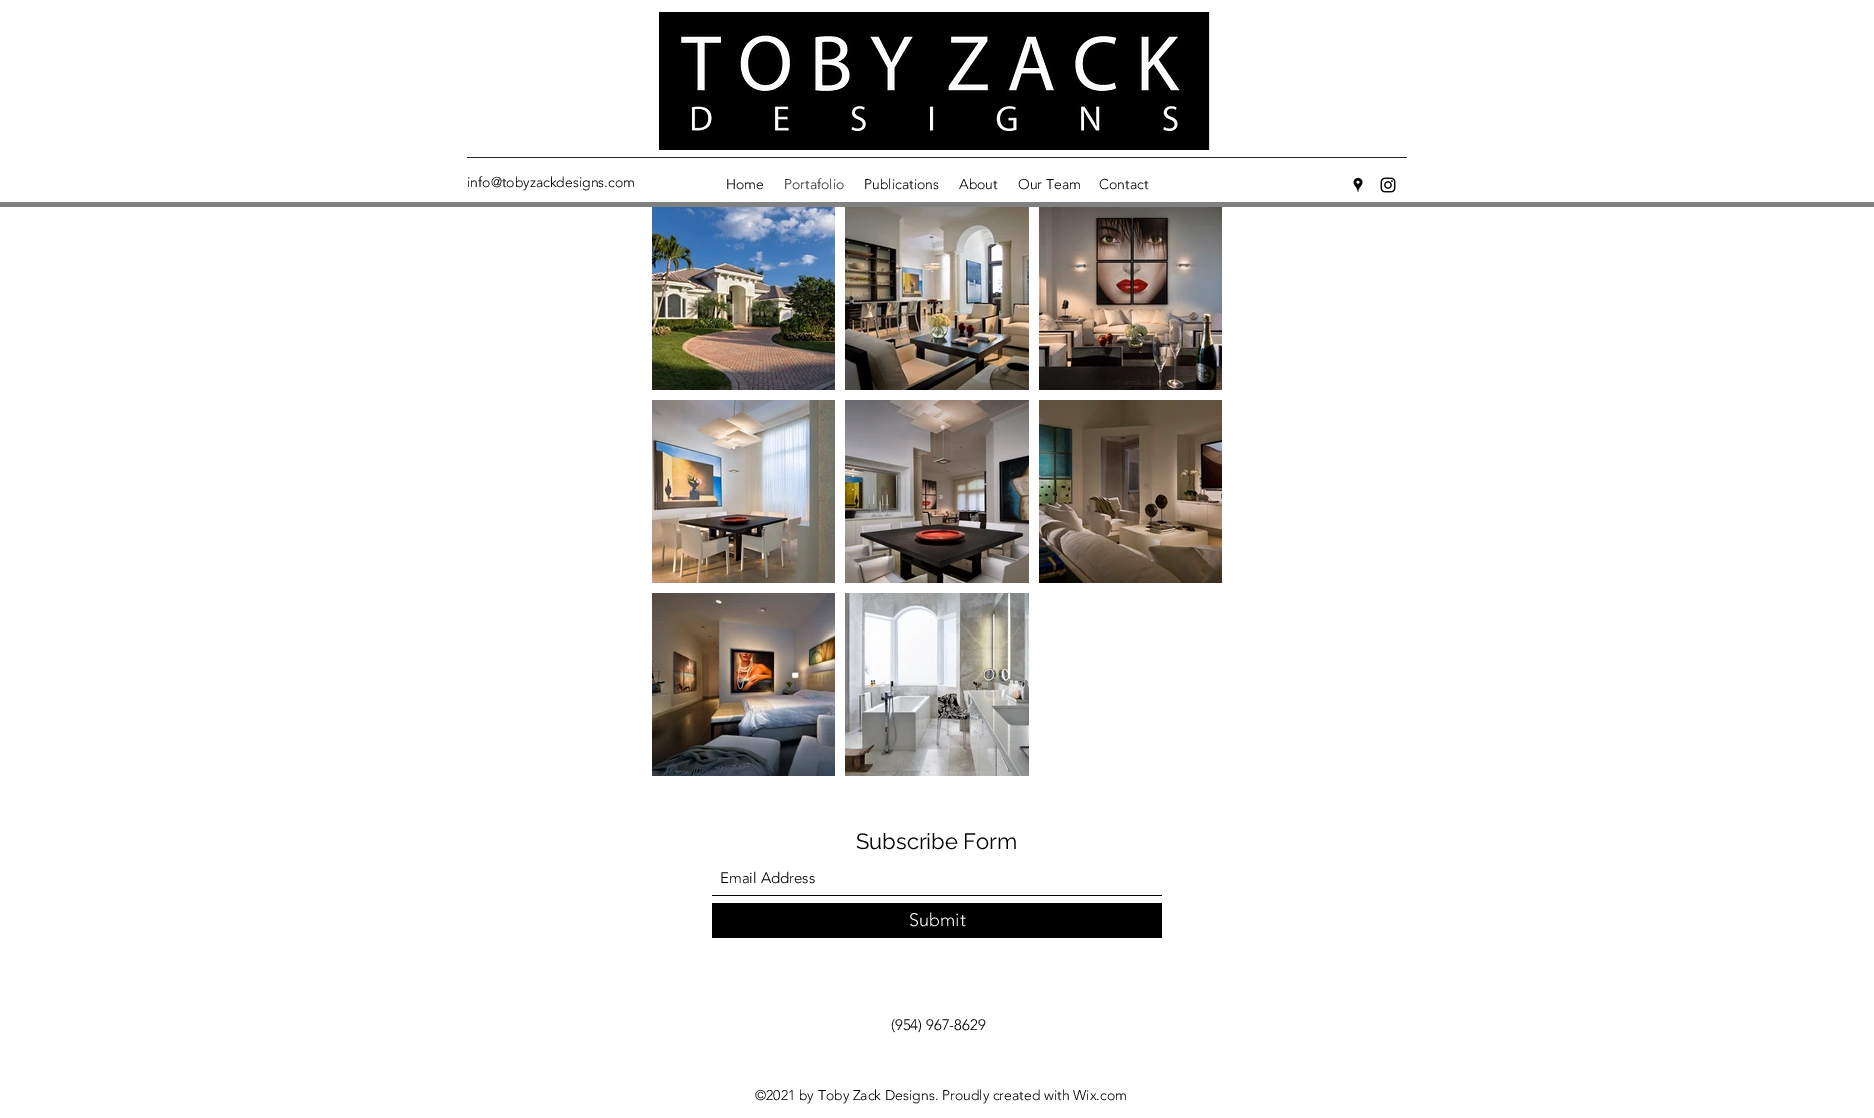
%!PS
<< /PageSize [1874 1118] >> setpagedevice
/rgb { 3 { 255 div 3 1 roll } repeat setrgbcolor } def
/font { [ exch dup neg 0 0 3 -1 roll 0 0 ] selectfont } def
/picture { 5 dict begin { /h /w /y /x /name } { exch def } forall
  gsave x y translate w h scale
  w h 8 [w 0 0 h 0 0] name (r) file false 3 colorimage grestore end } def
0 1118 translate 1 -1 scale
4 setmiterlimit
255 255 255 rgb
0 0 1874 1118 rectfill
(img/1.rgb) 659 12 551 138 picture
38 38 38 rgb
467 157 940 1 rectfill
(img/2.rgb) 1353 177 10 15 picture
(img/3.rgb) 1380 177 16 16 picture
128 128 128 rgb
0 202 1874 5 rectfill
(img/4.rgb) 652 207 183 183 picture
(img/5.rgb) 845 207 184 183 picture
(img/6.rgb) 1039 207 183 183 picture
(img/7.rgb) 652 400 183 183 picture
(img/8.rgb) 845 400 184 183 picture
(img/9.rgb) 1039 400 183 183 picture
(img/10.rgb) 652 593 183 183 picture
(img/11.rgb) 845 593 184 183 picture
0 0 0 rgb
712 895 450 1 rectfill
712 903 450 35 rectfill
/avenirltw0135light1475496-Light 14 font
467 187 moveto (info@tobyzackdesigns.com) show
726 189 moveto (Home) show
42 41 41 rgb
784 189 moveto (Portafolio) show
0 0 0 rgb
[
  [(Publications) 864 189]
  [(About) 959 189]
  [(Our Team) 1018 189]
  [(Contact) 1099 189]
] { aload pop moveto show } forall
/Raleway-Regular 22 font
856 849 moveto (Subscribe Form) show
/avenirltw0135light1475496-Light 15 font
720 883 moveto (Email Address) show
/avenirltw0135light1475496-Light 18 font
255 255 255 rgb
909 926 moveto (Submit) show
/avenirltw0135light1475496-Light 15 font
0 0 0 rgb
891 1030 moveto (\(954\) 967-8629) show
/avenirltw0135light1475496-Light 14 font
755 1100 moveto (©2021 by Toby Zack Designs. Proudly created with Wix.com) show
showpage
